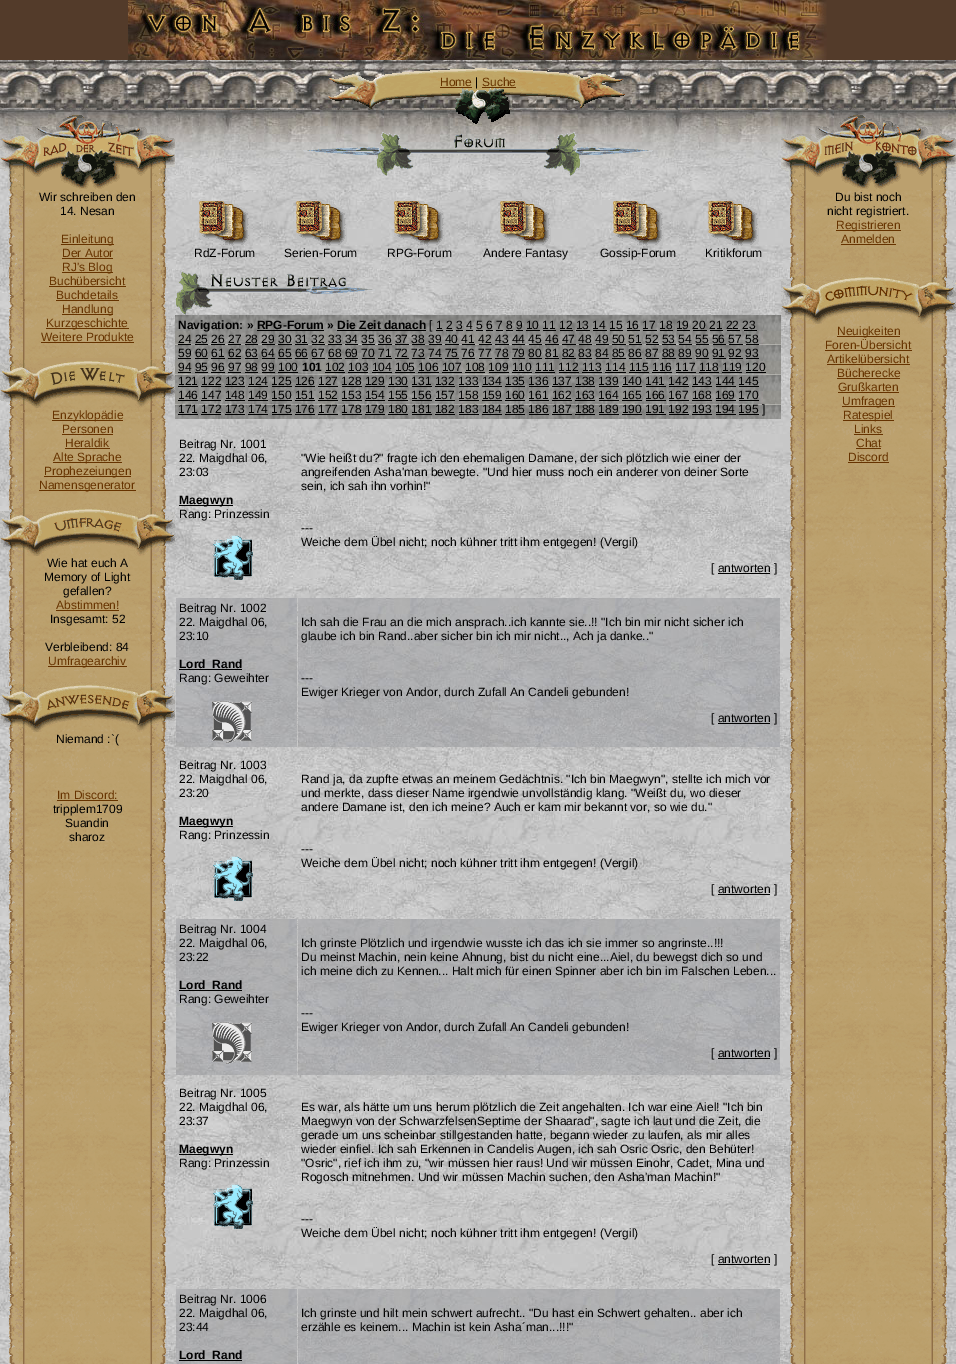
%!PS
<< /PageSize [956 1364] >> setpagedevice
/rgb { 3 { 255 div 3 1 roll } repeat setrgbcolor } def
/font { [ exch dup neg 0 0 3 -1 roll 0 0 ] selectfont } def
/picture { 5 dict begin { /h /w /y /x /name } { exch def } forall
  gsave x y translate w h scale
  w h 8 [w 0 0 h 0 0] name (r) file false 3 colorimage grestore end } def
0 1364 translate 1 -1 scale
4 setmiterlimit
255 255 255 rgb
0 0 956 1364 rectfill
(img/1.rgb) 0 190 956 1174 picture
83 59 42 rgb
0 0 956 60 rectfill
(img/2.rgb) 128 0 699 60 picture
(img/3.rgb) 0 60 956 50 picture
(img/4.rgb) 328 68 297 42 picture
102 51 0 rgb
440 87 32 1 rectfill
482 87 34 1 rectfill
(img/5.rgb) 0 110 956 80 picture
(img/6.rgb) 0 115 175 75 picture
(img/7.rgb) 456 110 54 14 picture
(img/8.rgb) 303 132 350 44 picture
(img/9.rgb) 781 115 175 75 picture
(img/10.rgb) 9 190 157 1174 picture
[
  [61 244 53 1 102 51 0]
  [62 258 51 1 102 51 0]
  [62 272 51 1 102 51 0]
  [49 286 77 1 102 51 0]
  [56 300 63 1 102 51 0]
  [62 314 51 1 102 51 0]
  [46 328 83 1 102 51 0]
  [41 342 93 1 102 51 0]
] { aload pop rgb rectfill } forall
(img/11.rgb) 0 358 175 50 picture
[
  [52 420 71 1 102 51 0]
  [62 434 51 1 102 51 0]
  [65 448 45 1 102 51 0]
  [53 462 69 1 102 51 0]
  [44 476 87 1 102 51 0]
  [39 490 97 1 102 51 0]
] { aload pop rgb rectfill } forall
(img/12.rgb) 0 507 175 49 picture
56 610 63 1 rectfill
48 666 79 1 rectfill
(img/13.rgb) 0 682 175 50 picture
57 800 61 1 rectfill
(img/14.rgb) 199 201 51 45 picture
(img/15.rgb) 296 201 51 45 picture
(img/16.rgb) 394 201 51 45 picture
(img/17.rgb) 500 201 51 45 picture
(img/18.rgb) 613 201 51 45 picture
(img/19.rgb) 708 201 51 45 picture
(img/20.rgb) 175 271 200 44 picture
(img/21.rgb) 175 315 600 104 picture
[
  [257 330 67 1 0 0 0]
  [337 330 89 1 0 0 0]
  [436 330 7 1 0 0 0]
  [446 330 7 1 0 0 0]
  [456 330 7 1 0 0 0]
  [466 330 7 1 0 0 0]
  [476 330 7 1 0 0 0]
  [486 330 7 1 0 0 0]
  [496 330 7 1 0 0 0]
  [506 330 7 1 0 0 0]
  [516 330 7 1 0 0 0]
  [526 330 14 1 0 0 0]
  [543 330 13 1 0 0 0]
  [560 330 13 1 0 0 0]
  [576 330 14 1 0 0 0]
  [593 330 14 1 0 0 0]
  [610 330 13 1 0 0 0]
  [627 330 13 1 0 0 0]
  [643 330 14 1 0 0 0]
  [660 330 13 1 0 0 0]
  [677 330 13 1 0 0 0]
  [693 330 14 1 0 0 0]
  [710 330 13 1 0 0 0]
  [727 330 13 1 0 0 0]
  [744 330 13 1 0 0 0]
  [178 344 13 1 0 0 0]
  [195 344 13 1 0 0 0]
  [211 344 14 1 0 0 0]
  [228 344 13 1 0 0 0]
  [245 344 13 1 0 0 0]
  [262 344 13 1 0 0 0]
  [278 344 14 1 0 0 0]
  [295 344 13 1 0 0 0]
  [312 344 13 1 0 0 0]
  [328 344 14 1 0 0 0]
  [345 344 13 1 0 0 0]
  [362 344 13 1 0 0 0]
  [378 344 14 1 0 0 0]
  [395 344 14 1 0 0 0]
  [412 344 13 1 0 0 0]
  [429 344 13 1 0 0 0]
  [445 344 14 1 0 0 0]
  [462 344 13 1 0 0 0]
  [479 344 13 1 0 0 0]
  [495 344 14 1 0 0 0]
  [512 344 13 1 0 0 0]
  [529 344 13 1 0 0 0]
  [545 344 14 1 0 0 0]
  [562 344 14 1 0 0 0]
  [579 344 13 1 0 0 0]
  [596 344 13 1 0 0 0]
  [612 344 14 1 0 0 0]
  [629 344 13 1 0 0 0]
  [646 344 13 1 0 0 0]
  [662 344 14 1 0 0 0]
  [679 344 13 1 0 0 0]
  [696 344 13 1 0 0 0]
  [713 344 13 1 0 0 0]
  [729 344 14 1 0 0 0]
  [746 344 13 1 0 0 0]
  [178 358 13 1 0 0 0]
  [195 358 13 1 0 0 0]
  [211 358 14 1 0 0 0]
  [228 358 13 1 0 0 0]
  [245 358 13 1 0 0 0]
  [262 358 13 1 0 0 0]
  [278 358 14 1 0 0 0]
  [295 358 13 1 0 0 0]
  [312 358 13 1 0 0 0]
  [328 358 14 1 0 0 0]
  [345 358 13 1 0 0 0]
  [362 358 13 1 0 0 0]
  [378 358 14 1 0 0 0]
  [395 358 14 1 0 0 0]
  [412 358 13 1 0 0 0]
  [429 358 13 1 0 0 0]
  [445 358 14 1 0 0 0]
  [462 358 13 1 0 0 0]
  [479 358 13 1 0 0 0]
  [495 358 14 1 0 0 0]
  [512 358 13 1 0 0 0]
  [529 358 13 1 0 0 0]
  [545 358 14 1 0 0 0]
  [562 358 14 1 0 0 0]
  [579 358 13 1 0 0 0]
  [596 358 13 1 0 0 0]
  [612 358 14 1 0 0 0]
  [629 358 13 1 0 0 0]
  [646 358 13 1 0 0 0]
  [662 358 14 1 0 0 0]
  [679 358 13 1 0 0 0]
  [696 358 13 1 0 0 0]
  [713 358 13 1 0 0 0]
  [729 358 14 1 0 0 0]
  [746 358 13 1 0 0 0]
  [178 372 13 1 0 0 0]
  [195 372 13 1 0 0 0]
  [211 372 14 1 0 0 0]
  [228 372 13 1 0 0 0]
  [245 372 13 1 0 0 0]
  [262 372 13 1 0 0 0]
  [278 372 20 1 0 0 0]
  [325 372 20 1 0 0 0]
  [348 372 20 1 0 0 0]
  [372 372 20 1 0 0 0]
  [395 372 20 1 0 0 0]
  [418 372 21 1 0 0 0]
  [442 372 20 1 0 0 0]
  [465 372 20 1 0 0 0]
  [489 372 20 1 0 0 0]
  [512 372 20 1 0 0 0]
  [535 372 20 1 0 0 0]
  [559 372 20 1 0 0 0]
  [582 372 20 1 0 0 0]
  [605 372 21 1 0 0 0]
  [629 372 20 1 0 0 0]
  [652 372 20 1 0 0 0]
  [676 372 20 1 0 0 0]
  [699 372 20 1 0 0 0]
  [722 372 20 1 0 0 0]
  [746 372 20 1 0 0 0]
  [178 386 20 1 0 0 0]
  [201 386 20 1 0 0 0]
  [225 386 20 1 0 0 0]
  [248 386 20 1 0 0 0]
  [272 386 20 1 0 0 0]
  [295 386 20 1 0 0 0]
  [318 386 20 1 0 0 0]
  [342 386 20 1 0 0 0]
  [365 386 20 1 0 0 0]
  [388 386 20 1 0 0 0]
  [412 386 20 1 0 0 0]
  [435 386 20 1 0 0 0]
  [459 386 20 1 0 0 0]
  [482 386 20 1 0 0 0]
  [505 386 20 1 0 0 0]
  [529 386 20 1 0 0 0]
  [552 386 20 1 0 0 0]
  [575 386 20 1 0 0 0]
  [599 386 20 1 0 0 0]
  [622 386 20 1 0 0 0]
  [646 386 20 1 0 0 0]
  [669 386 20 1 0 0 0]
  [692 386 20 1 0 0 0]
  [716 386 20 1 0 0 0]
  [739 386 20 1 0 0 0]
  [178 400 20 1 0 0 0]
  [201 400 20 1 0 0 0]
  [225 400 20 1 0 0 0]
  [248 400 20 1 0 0 0]
  [272 400 20 1 0 0 0]
  [295 400 20 1 0 0 0]
  [318 400 20 1 0 0 0]
  [342 400 20 1 0 0 0]
  [365 400 20 1 0 0 0]
  [388 400 20 1 0 0 0]
  [412 400 20 1 0 0 0]
  [435 400 20 1 0 0 0]
  [459 400 20 1 0 0 0]
  [482 400 20 1 0 0 0]
  [505 400 20 1 0 0 0]
  [529 400 20 1 0 0 0]
  [552 400 20 1 0 0 0]
  [575 400 20 1 0 0 0]
  [599 400 20 1 0 0 0]
  [622 400 20 1 0 0 0]
  [646 400 20 1 0 0 0]
  [669 400 20 1 0 0 0]
  [692 400 20 1 0 0 0]
  [716 400 20 1 0 0 0]
  [739 400 20 1 0 0 0]
  [178 414 20 1 0 0 0]
  [201 414 20 1 0 0 0]
  [225 414 20 1 0 0 0]
  [248 414 20 1 0 0 0]
  [272 414 20 1 0 0 0]
  [295 414 20 1 0 0 0]
  [318 414 20 1 0 0 0]
  [342 414 20 1 0 0 0]
  [365 414 20 1 0 0 0]
  [388 414 20 1 0 0 0]
  [412 414 20 1 0 0 0]
  [435 414 20 1 0 0 0]
  [459 414 20 1 0 0 0]
  [482 414 20 1 0 0 0]
  [505 414 20 1 0 0 0]
  [529 414 20 1 0 0 0]
  [552 414 20 1 0 0 0]
  [575 414 20 1 0 0 0]
  [599 414 20 1 0 0 0]
  [622 414 20 1 0 0 0]
  [646 414 20 1 0 0 0]
  [669 414 20 1 0 0 0]
  [692 414 20 1 0 0 0]
  [716 414 20 1 0 0 0]
  [739 414 20 1 0 0 0]
] { aload pop rgb rectfill } forall
(img/22.rgb) 775 315 6 104 picture
179 505 54 1 rectfill
(img/23.rgb) 213 535 40 45 picture
718 573 52 1 rectfill
(img/24.rgb) 176 598 121 149 picture
179 669 63 1 rectfill
(img/25.rgb) 212 701 40 42 picture
(img/26.rgb) 298 598 482 149 picture
718 723 52 1 rectfill
179 826 54 1 rectfill
(img/27.rgb) 213 856 40 45 picture
718 894 52 1 rectfill
(img/28.rgb) 176 919 121 156 picture
179 990 63 1 rectfill
(img/25.rgb) 212 1022 40 42 picture
(img/29.rgb) 298 919 482 156 picture
718 1058 52 1 rectfill
179 1154 54 1 rectfill
(img/30.rgb) 213 1184 40 45 picture
718 1264 52 1 rectfill
(img/31.rgb) 176 1289 121 75 picture
179 1360 63 1 rectfill
(img/32.rgb) 298 1289 482 75 picture
(img/33.rgb) 790 190 157 1174 picture
102 51 0 rgb
836 230 65 1 rectfill
841 244 55 1 rectfill
(img/34.rgb) 781 274 175 50 picture
[
  [837 336 63 1 102 51 0]
  [825 350 87 1 102 51 0]
  [827 364 83 1 102 51 0]
  [837 378 63 1 102 51 0]
  [838 392 61 1 102 51 0]
  [842 406 53 1 102 51 0]
  [843 420 51 1 102 51 0]
  [854 434 29 1 102 51 0]
  [856 448 25 1 102 51 0]
  [848 462 41 1 102 51 0]
] { aload pop rgb rectfill } forall
/LiberationSans-Regular 12 font
440 86 moveto (Home) show
0 0 0 rgb
475 86 moveto (|) show
102 51 0 rgb
482 86 moveto (Suche) show
0 0 0 rgb
39 201 moveto (Wir schreiben den) show
60 215 moveto (14. Nesan) show
102 51 0 rgb
[
  [(Einleitung) 61 243]
  [(Der Autor) 62 257]
  [(RJ's Blog) 62 271]
  [(Buchübersicht) 49 285]
  [(Buchdetails) 56 299]
  [(Handlung) 62 313]
  [(Kurzgeschichte) 46 327]
  [(Weitere Produkte) 41 341]
  [(Enzyklopädie) 52 419]
  [(Personen) 62 433]
  [(Heraldik) 65 447]
  [(Alte Sprache) 53 461]
  [(Prophezeiungen) 44 475]
  [(Namensgenerator) 39 489]
] { aload pop moveto show } forall
0 0 0 rgb
[
  [(Wie hat euch A) 47 567]
  [(Memory of Light) 44 581]
  [(gefallen?) 63 595]
] { aload pop moveto show } forall
102 51 0 rgb
56 609 moveto (Abstimmen!) show
0 0 0 rgb
50 623 moveto (Insgesamt: 52) show
45 651 moveto (Verbleibend: 84) show
102 51 0 rgb
48 665 moveto (Umfragearchiv) show
0 0 0 rgb
56 743 moveto (Niemand :`\() show
102 51 0 rgb
57 799 moveto (Im Discord:) show
0 0 0 rgb
[
  [(tripplem1709) 53 813]
  [(Suandin) 65 827]
  [(sharoz) 69 841]
  [(RdZ-Forum) 194 257]
  [(Serien-Forum) 284 257]
  [(RPG-Forum) 387 257]
  [(Andere Fantasy) 483 257]
  [(Gossip-Forum) 600 257]
  [(Kritikforum) 705 257]
] { aload pop moveto show } forall
/LiberationSans-Bold 12 font
178 329 moveto (Navigation: » RPG-Forum » Die Zeit danach) show
/LiberationSans-Regular 12 font
[
  [([ 1 2 3 4 5 6 7 8 9 10 11 12 13 14 15 16 17 18 19 20 21 22 23) 429 329]
  [(24 25 26 27 28 29 30 31 32 33 34 35 36 37 38 39 40 41 42 43 44 45 46 47 48 49 50 51 52 53 54 55 56 57 58) 178 343]
  [(59 60 61 62 63 64 65 66 67 68 69 70 71 72 73 74 75 76 77 78 79 80 81 82 83 84 85 86 87 88 89 90 91 92 93) 178 357]
  [(94 95 96 97 98 99 100) 178 371]
] { aload pop moveto show } forall
/LiberationSans-Bold 12 font
302 371 moveto (101) show
/LiberationSans-Regular 12 font
[
  [(102 103 104 105 106 107 108 109 110 111 112 113 114 115 116 117 118 119 120) 325 371]
  [(121 122 123 124 125 126 127 128 129 130 131 132 133 134 135 136 137 138 139 140 141 142 143 144 145) 178 385]
  [(146 147 148 149 150 151 152 153 154 155 156 157 158 159 160 161 162 163 164 165 166 167 168 169 170) 178 399]
  [(171 172 173 174 175 176 177 178 179 180 181 182 183 184 185 186 187 188 189 190 191 192 193 194 195 ]) 178 413]
  [(Beitrag Nr. 1001) 179 448]
  [(22. Maigdhal 06,) 179 462]
  [(23:03) 179 476]
] { aload pop moveto show } forall
/LiberationSans-Bold 12 font
179 504 moveto (Maegwyn) show
/LiberationSans-Regular 12 font
[
  [(Rang: Prinzessin) 179 518]
  [("Wie heißt du?" fragte ich den ehemaligen Damane, der sich plötzlich wie einer der) 301 462]
  [(angreifenden Asha'man bewegte. "Und hier muss noch ein anderer von deiner Sorte) 301 476]
  [(sein, ich sah ihn vorhin!") 301 490]
  [(---) 301 532]
  [(Weiche dem Übel nicht; noch kühner tritt ihm entgegen! \(Vergil\)) 301 546]
  [([ antworten ]) 711 572]
  [(Beitrag Nr. 1002) 179 612]
  [(22. Maigdhal 06,) 179 626]
  [(23:10) 179 640]
] { aload pop moveto show } forall
/LiberationSans-Bold 12 font
179 668 moveto (Lord_Rand) show
/LiberationSans-Regular 12 font
[
  [(Rang: Geweihter) 179 682]
  [(Ich sah die Frau an die mich ansprach..ich kannte sie..!! "Ich bin mir nicht sicher ich) 301 626]
  [(glaube ich bin Rand..aber sicher bin ich mir nicht.., Ach ja danke..") 301 640]
  [(---) 301 682]
  [(Ewiger Krieger von Andor, durch Zufall An Candeli gebunden!) 301 696]
  [([ antworten ]) 711 722]
  [(Beitrag Nr. 1003) 179 769]
  [(22. Maigdhal 06,) 179 783]
  [(23:20) 179 797]
] { aload pop moveto show } forall
/LiberationSans-Bold 12 font
179 825 moveto (Maegwyn) show
/LiberationSans-Regular 12 font
[
  [(Rang: Prinzessin) 179 839]
  [(Rand ja, da zupfte etwas an meinem Gedächtnis. "Ich bin Maegwyn", stellte ich mich vor) 301 783]
  [(und merkte, dass dieser Name irgendwie unvollständig klang. "Weißt du, wo dieser) 301 797]
  [(andere Damane ist, den ich meine? Auch er kam mir bekannt vor, so wie du.") 301 811]
  [(---) 301 853]
  [(Weiche dem Übel nicht; noch kühner tritt ihm entgegen! \(Vergil\)) 301 867]
  [([ antworten ]) 711 893]
  [(Beitrag Nr. 1004) 179 933]
  [(22. Maigdhal 06,) 179 947]
  [(23:22) 179 961]
] { aload pop moveto show } forall
/LiberationSans-Bold 12 font
179 989 moveto (Lord_Rand) show
/LiberationSans-Regular 12 font
[
  [(Rang: Geweihter) 179 1003]
  [(Ich grinste Plötzlich und irgendwie wusste ich das ich sie immer so angrinste..!!!) 301 947]
  [(Du meinst Machin, nein keine Ahnung, bist du nicht eine...Aiel, du bewegst dich so und) 301 961]
  [(ich meine dich zu Kennen... Halt mich für einen Spinner aber ich bin im Falschen Leben...) 301 975]
  [(---) 301 1017]
  [(Ewiger Krieger von Andor, durch Zufall An Candeli gebunden!) 301 1031]
  [([ antworten ]) 711 1057]
  [(Beitrag Nr. 1005) 179 1097]
  [(22. Maigdhal 06,) 179 1111]
  [(23:37) 179 1125]
] { aload pop moveto show } forall
/LiberationSans-Bold 12 font
179 1153 moveto (Maegwyn) show
/LiberationSans-Regular 12 font
[
  [(Rang: Prinzessin) 179 1167]
  [(Es war, als hätte um uns herum plötzlich die Zeit angehalten. Ich war eine Aiel! "Ich bin) 301 1111]
  [(Maegwyn von der SchwarzfelsenSeptime der Shaarad", sagte ich laut und die Zeit, die) 301 1125]
  [(gerade um uns scheinbar stillgestanden hatte, begann wieder zu laufen, als mir alles) 301 1139]
  [(wieder einfiel. Ich sah Erkennen in Candelis Augen, ich sah Osric Osric, den Behüter!) 301 1153]
  [("Osric", rief ich ihm zu, "wir müssen hier raus! Und wir müssen Einohr, Cadet, Mina und) 301 1167]
  [(Rogosch mitnehmen. Und wir müssen Machin suchen, den Asha'man Machin!") 301 1181]
  [(---) 301 1223]
  [(Weiche dem Übel nicht; noch kühner tritt ihm entgegen! \(Vergil\)) 301 1237]
  [([ antworten ]) 711 1263]
  [(Beitrag Nr. 1006) 179 1303]
  [(22. Maigdhal 06,) 179 1317]
  [(23:44) 179 1331]
] { aload pop moveto show } forall
/LiberationSans-Bold 12 font
179 1359 moveto (Lord_Rand) show
/LiberationSans-Regular 12 font
[
  [(Ich grinste und hilt mein schwert aufrecht.. "Du hast ein Schwert gehalten.. aber ich) 301 1317]
  [(erzähle es keinem... Machin ist kein Asha´man...!!!") 301 1331]
  [(Du bist noch) 835 201]
  [(nicht registriert.) 827 215]
] { aload pop moveto show } forall
102 51 0 rgb
[
  [(Registrieren) 836 229]
  [(Anmelden) 841 243]
  [(Neuigkeiten) 837 335]
  [(Foren-Übersicht) 825 349]
  [(Artikelübersicht) 827 363]
  [(Bücherecke) 837 377]
  [(Grußkarten) 838 391]
  [(Umfragen) 842 405]
  [(Ratespiel) 843 419]
  [(Links) 854 433]
  [(Chat) 856 447]
  [(Discord) 848 461]
] { aload pop moveto show } forall
showpage
